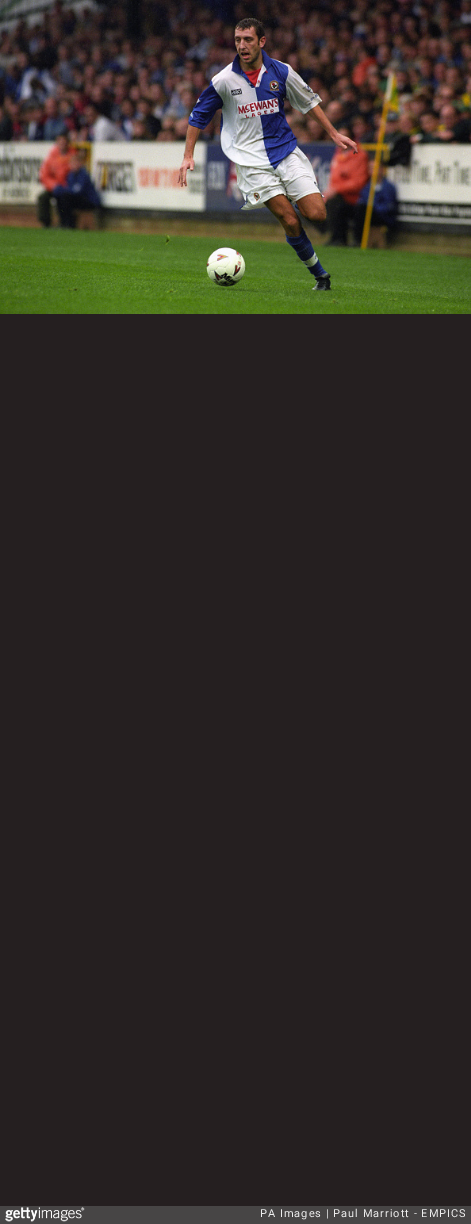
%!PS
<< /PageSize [471 1224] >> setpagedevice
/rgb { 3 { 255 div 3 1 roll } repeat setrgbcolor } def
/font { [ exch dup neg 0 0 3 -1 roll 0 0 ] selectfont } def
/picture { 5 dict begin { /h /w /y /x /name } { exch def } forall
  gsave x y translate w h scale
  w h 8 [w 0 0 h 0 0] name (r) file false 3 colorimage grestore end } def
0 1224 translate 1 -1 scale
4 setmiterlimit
37 31 32 rgb
0 0 471 1224 rectfill
(img/1.rgb) 0 0 471 314 picture
71 69 69 rgb
0 1206 471 18 rectfill
(img/2.rgb) 5 1207 80 15 picture
/Roboto-Regular 11 font
238 238 238 rgb
260 1217 moveto 1 0 (PA Images | Paul Marriott - EMPICS) ashow
showpage
